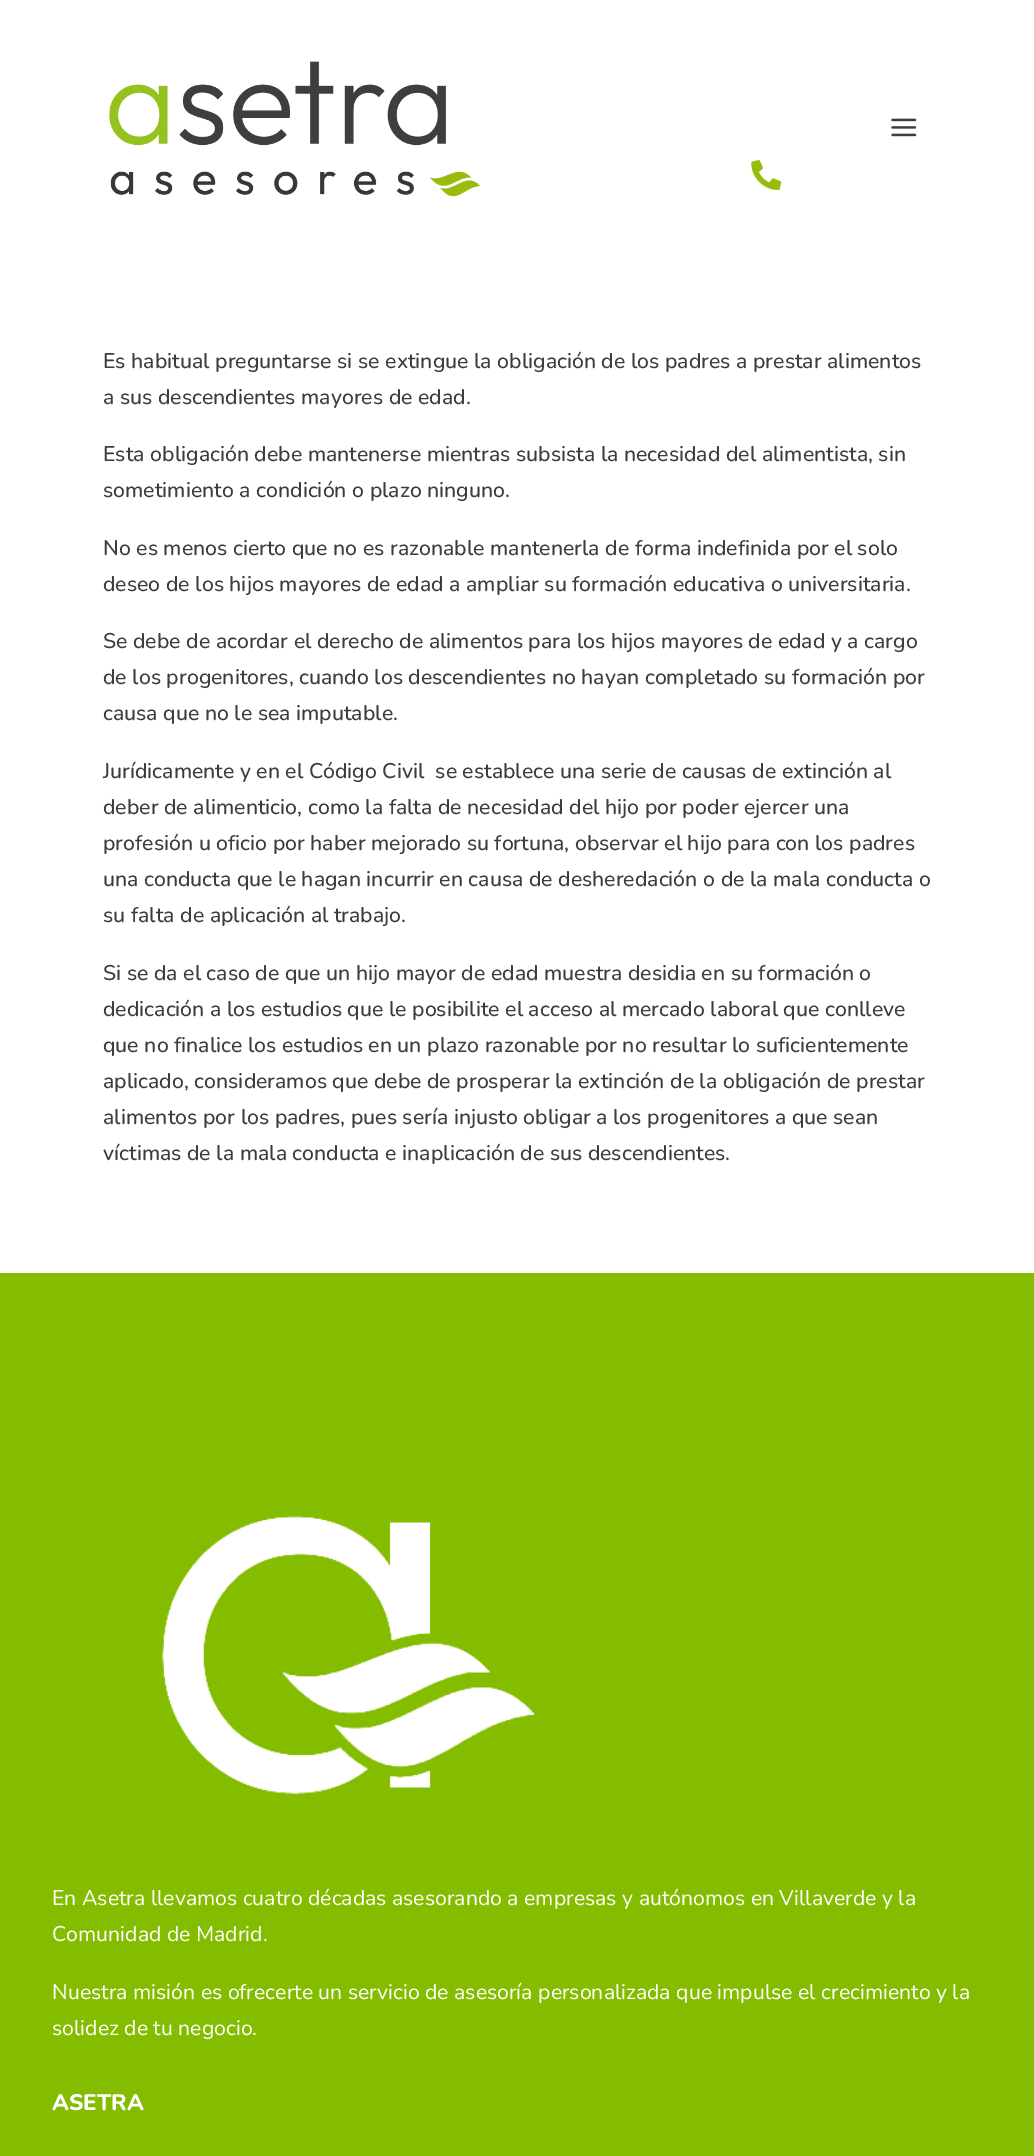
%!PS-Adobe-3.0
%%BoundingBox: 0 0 1034 2156
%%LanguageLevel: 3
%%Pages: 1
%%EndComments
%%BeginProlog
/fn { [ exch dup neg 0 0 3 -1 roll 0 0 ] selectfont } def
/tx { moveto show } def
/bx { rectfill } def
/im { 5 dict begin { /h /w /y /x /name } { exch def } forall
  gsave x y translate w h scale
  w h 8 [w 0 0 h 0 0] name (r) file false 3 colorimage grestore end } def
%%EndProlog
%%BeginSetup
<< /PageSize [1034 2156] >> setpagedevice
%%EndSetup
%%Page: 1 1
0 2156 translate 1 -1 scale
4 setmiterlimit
1 setgray
0 0 1034 2156 bx
(image0.raw) 109 61 371 136 im
(image1.raw) 891 118 26 19 im
(image2.raw) 751 160 31 30 im
/Nunito-Medium 21.25 fn
0.239 0.239 0.247 setrgbcolor
(Es habitual preguntarse si se extingue la obligación de los padres a prestar alimentos) 103 368 tx
(a sus descendientes mayores de edad.) 103 404 tx
(Esta obligación debe mantenerse mientras subsista la necesidad del alimentista, sin) 103 461 tx
(sometimiento a condición o plazo ninguno.) 103 497 tx
(No es menos cierto que no es razonable mantenerla de forma indefinida por el solo) 103 555 tx
(deseo de los hijos mayores de edad a ampliar su formación educativa o universitaria.) 103 591 tx
(Se debe de acordar el derecho de alimentos para los hijos mayores de edad y a cargo) 103 648 tx
(de los progenitores, cuando los descendientes no hayan completado su formación por) 103 684 tx
(causa que no le sea imputable.) 103 720 tx
(Jurídicamente y en el Código Civil  se establece una serie de causas de extinción al) 103 778 tx
(deber de alimenticio, como la falta de necesidad del hijo por poder ejercer una) 103 814 tx
(profesión u oficio por haber mejorado su fortuna, observar el hijo para con los padres) 103 850 tx
(una conducta que le hagan incurrir en causa de desheredación o de la mala conducta o) 103 886 tx
(su falta de aplicación al trabajo.) 103 922 tx
(Si se da el caso de que un hijo mayor de edad muestra desidia en su formación o) 103 980 tx
(dedicación a los estudios que le posibilite el acceso al mercado laboral que conlleve) 103 1016 tx
(que no finalice los estudios en un plazo razonable por no resultar lo suficientemente) 103 1052 tx
(aplicado, consideramos que debe de prosperar la extinción de la obligación de prestar) 103 1088 tx
(alimentos por los padres, pues sería injusto obligar a los progenitores a que sean) 103 1124 tx
(víctimas de la mala conducta e inaplicación de sus descendientes.) 103 1160 tx
0.518 0.741 0 setrgbcolor
0 1273 1034 883 bx
(image3.raw) 162 1516 374 278 im
/Nunito-Regular 21.25 fn
1 setgray
(En Asetra llevamos cuatro décadas asesorando a empresas y autónomos en Villaverde y la) 52 1905 tx
(Comunidad de Madrid.) 52 1941 tx
(Nuestra misión es ofrecerte un servicio de asesoría personalizada que impulse el crecimiento y la) 52 1999 tx
(solidez de tu negocio.) 52 2035 tx
/Nunito-ExtraBold 22.5 fn
(ASETRA) 52 2110 tx
showpage
%%EOF
